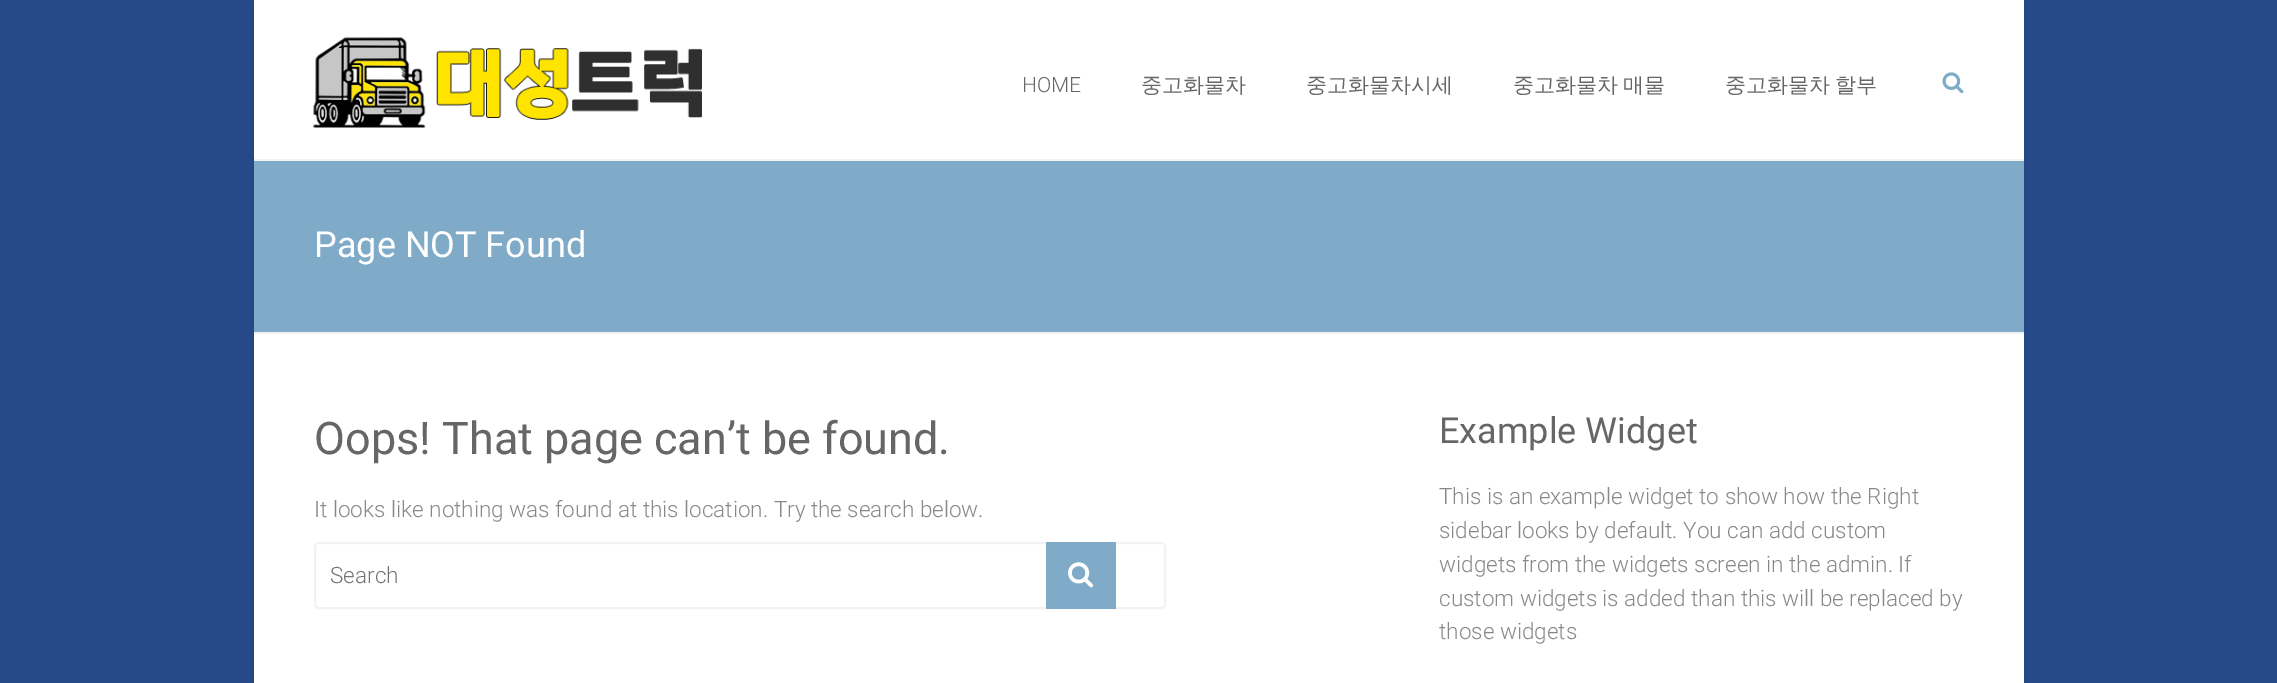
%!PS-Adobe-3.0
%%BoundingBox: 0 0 2277 683
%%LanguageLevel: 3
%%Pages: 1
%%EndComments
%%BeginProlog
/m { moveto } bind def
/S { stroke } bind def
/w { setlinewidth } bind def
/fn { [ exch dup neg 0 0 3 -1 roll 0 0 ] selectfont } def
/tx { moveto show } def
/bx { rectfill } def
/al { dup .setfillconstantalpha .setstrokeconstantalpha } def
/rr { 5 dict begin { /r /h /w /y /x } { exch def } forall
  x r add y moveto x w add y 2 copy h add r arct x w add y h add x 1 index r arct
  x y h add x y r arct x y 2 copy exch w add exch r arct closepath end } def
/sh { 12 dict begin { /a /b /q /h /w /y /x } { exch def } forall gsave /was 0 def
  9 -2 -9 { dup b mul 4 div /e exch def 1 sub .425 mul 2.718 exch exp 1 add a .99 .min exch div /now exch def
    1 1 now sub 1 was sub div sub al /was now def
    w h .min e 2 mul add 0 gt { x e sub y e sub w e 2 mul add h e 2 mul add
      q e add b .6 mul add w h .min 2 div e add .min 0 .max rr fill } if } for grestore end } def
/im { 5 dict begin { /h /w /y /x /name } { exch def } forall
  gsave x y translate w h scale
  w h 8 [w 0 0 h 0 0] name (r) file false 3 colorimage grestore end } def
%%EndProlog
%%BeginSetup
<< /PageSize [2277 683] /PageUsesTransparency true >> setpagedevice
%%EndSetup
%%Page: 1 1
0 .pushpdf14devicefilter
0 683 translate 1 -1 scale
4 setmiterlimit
0.145 0.286 0.537 setrgbcolor
0 0 2277 683 bx
0 setgray
254 2 1770 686 0 1.5 0.1 sh
1 setgray
254 0 1770 683 bx
0.949 setgray
254 159 1770 2 bx
(image0.raw) 313 37 389 91 im
/Roboto-Light 21 fn
0.4 setgray
(HOME) 1022 92 tx
/WenQuanYiZenHei-Medium 21 fn
(중고화물차) 1141 92 tx
(중고화물차시세) 1306 92 tx
1513 92 m -1 0 32 (중고화물차 매물) widthshow
1725 92 m -1 0 32 (중고화물차 할부) widthshow
(image1.raw) 1942 72 22 22 im
0.502 0.671 0.784 setrgbcolor
254 161 1770 171 bx
0.949 setgray
254 332 1770 2 bx
/Roboto-Regular 36 fn
1 setgray
(Page NOT Found) 314 257 tx
/Roboto-Regular 45 fn
0.4 setgray
(Oops! That page can’t be found.) 314 454 tx
/Roboto-Light 22.5 fn
0.533 setgray
(It looks like nothing was found at this location. Try the search below.) 314 517 tx
0.949 setgray
2 w
315 543 850 65 4 rr S
0.459 setgray
(Search) 330 583 tx
0.502 0.671 0.784 setrgbcolor
1046 542 70 67 bx
(image2.raw) 1068 562 25 26 im
/Roboto-Regular 36 fn
0.4 setgray
(Example Widget) 1439 443 tx
/Roboto-Light 22.5 fn
0.533 setgray
(This is an example widget to show how the Right) 1439 504 tx
(sidebar looks by default. You can add custom) 1439 538 tx
(widgets from the widgets screen in the admin. If) 1439 572 tx
(custom widgets is added than this will be replaced by) 1439 606 tx
(those widgets) 1439 639 tx
.poppdf14devicefilter showpage
%%EOF
